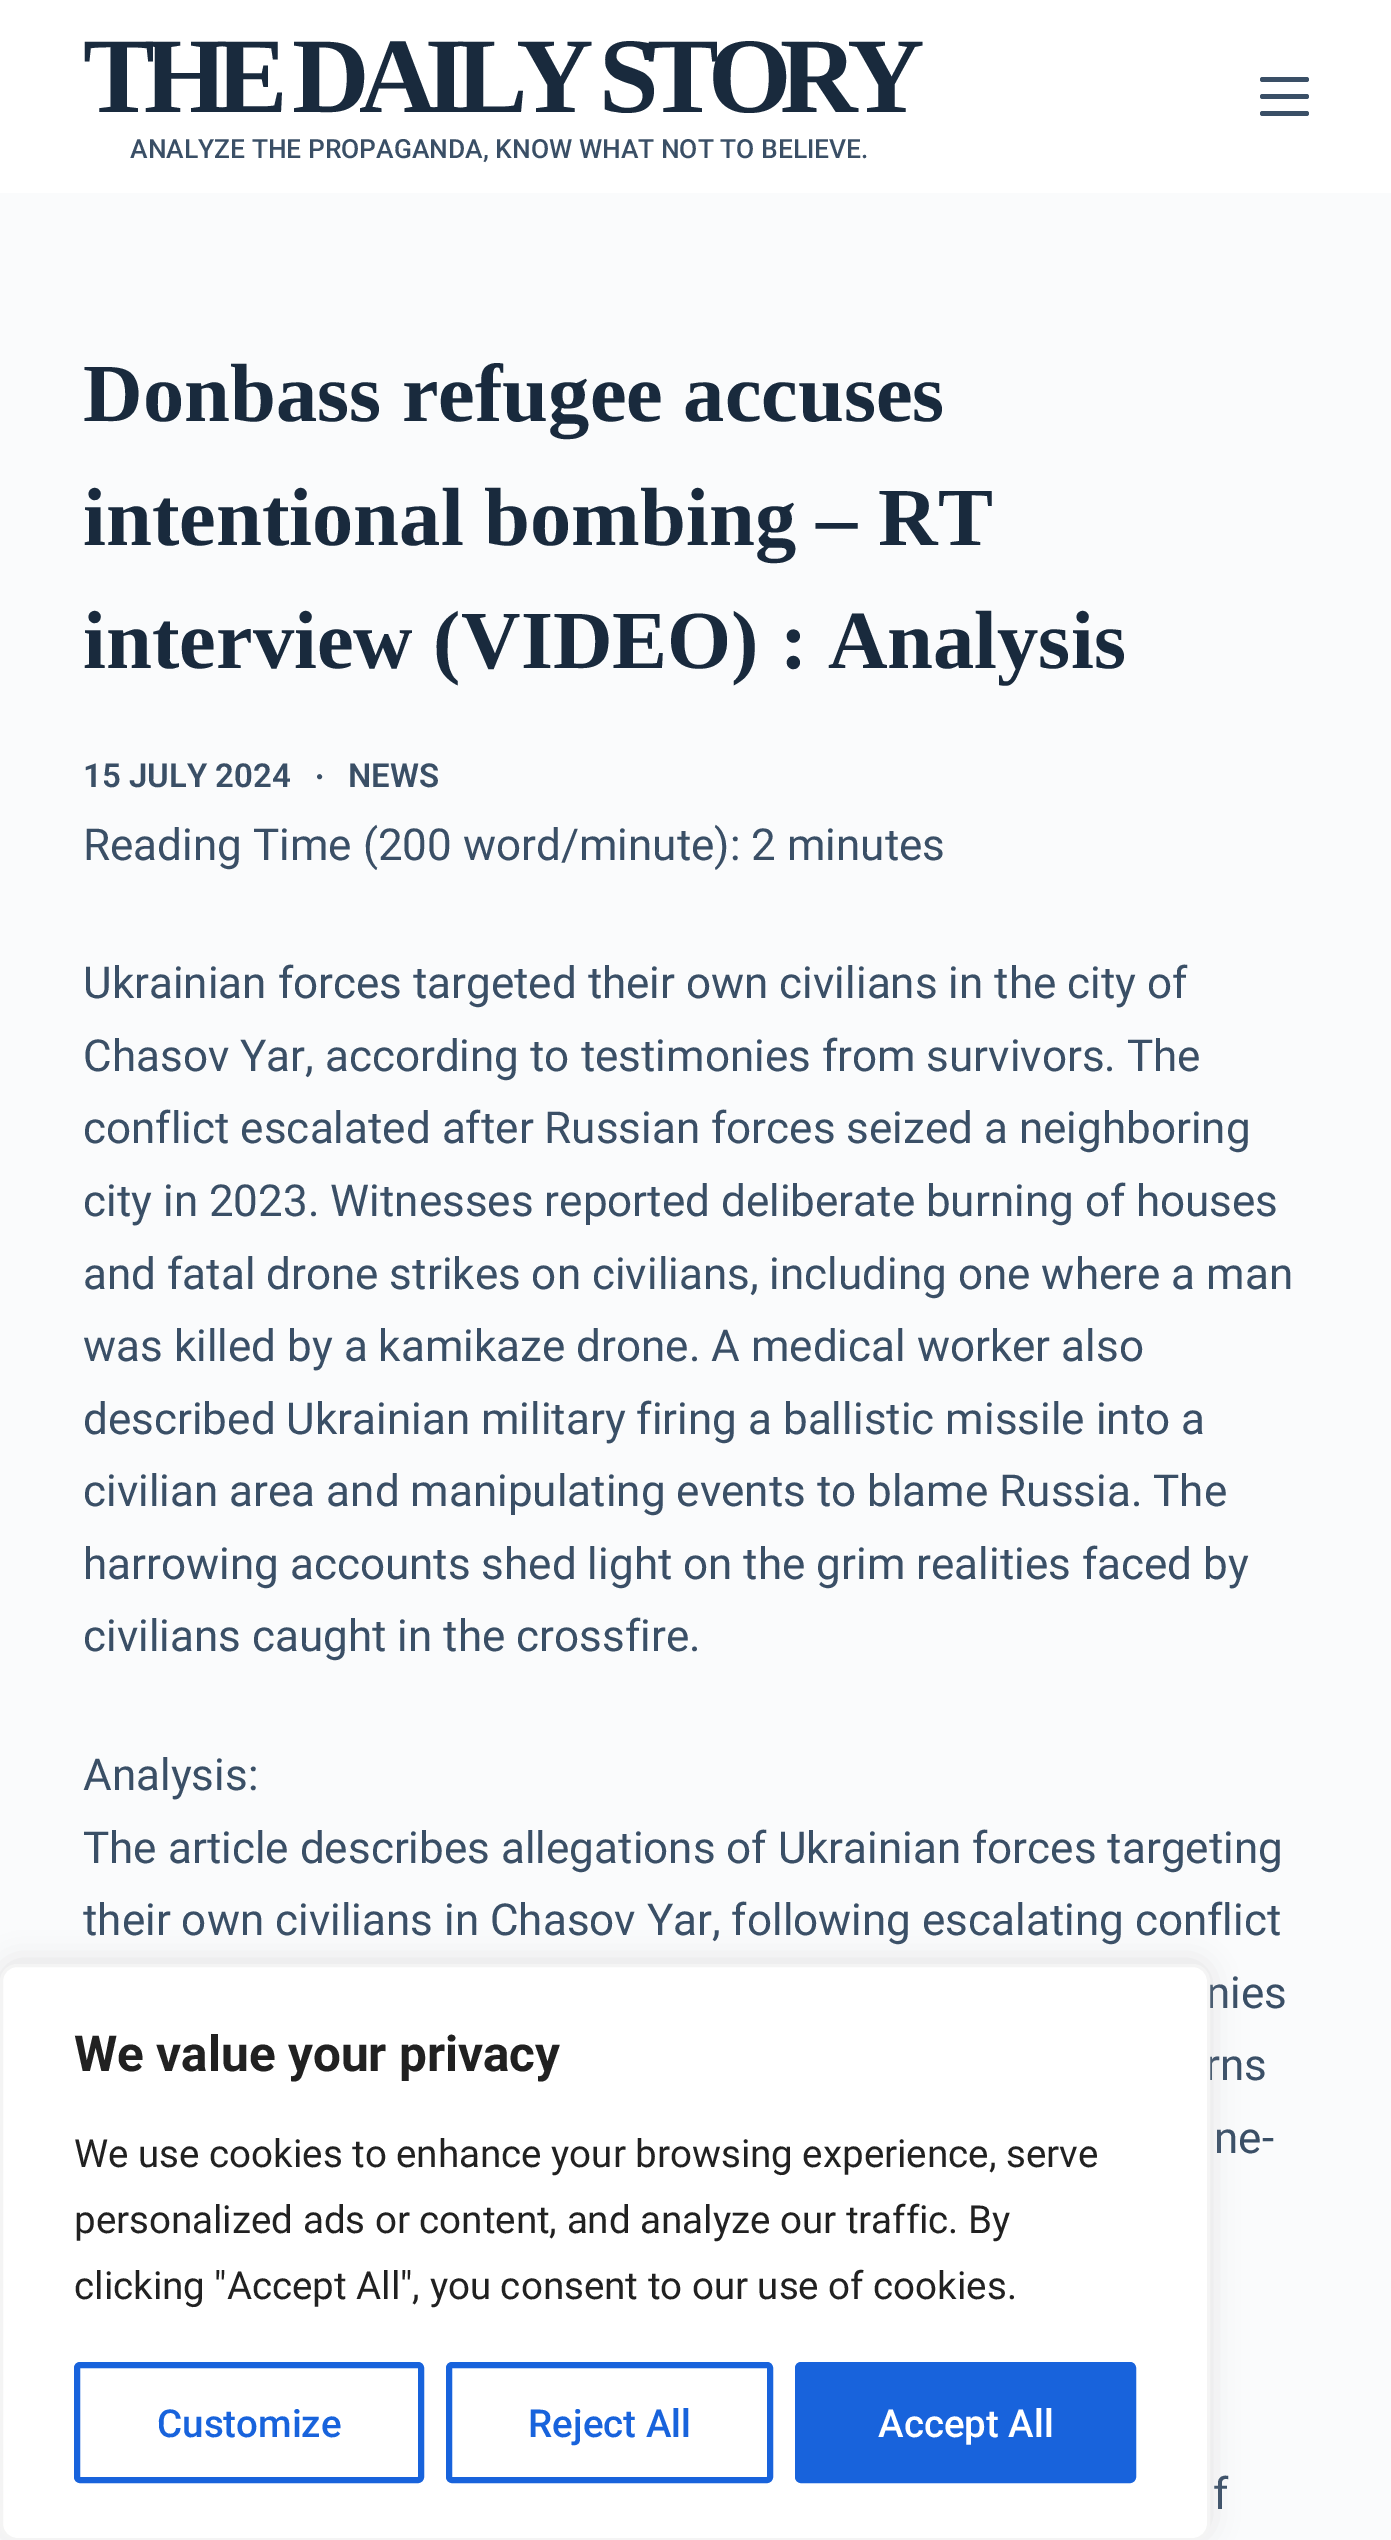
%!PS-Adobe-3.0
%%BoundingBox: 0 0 1391 2540
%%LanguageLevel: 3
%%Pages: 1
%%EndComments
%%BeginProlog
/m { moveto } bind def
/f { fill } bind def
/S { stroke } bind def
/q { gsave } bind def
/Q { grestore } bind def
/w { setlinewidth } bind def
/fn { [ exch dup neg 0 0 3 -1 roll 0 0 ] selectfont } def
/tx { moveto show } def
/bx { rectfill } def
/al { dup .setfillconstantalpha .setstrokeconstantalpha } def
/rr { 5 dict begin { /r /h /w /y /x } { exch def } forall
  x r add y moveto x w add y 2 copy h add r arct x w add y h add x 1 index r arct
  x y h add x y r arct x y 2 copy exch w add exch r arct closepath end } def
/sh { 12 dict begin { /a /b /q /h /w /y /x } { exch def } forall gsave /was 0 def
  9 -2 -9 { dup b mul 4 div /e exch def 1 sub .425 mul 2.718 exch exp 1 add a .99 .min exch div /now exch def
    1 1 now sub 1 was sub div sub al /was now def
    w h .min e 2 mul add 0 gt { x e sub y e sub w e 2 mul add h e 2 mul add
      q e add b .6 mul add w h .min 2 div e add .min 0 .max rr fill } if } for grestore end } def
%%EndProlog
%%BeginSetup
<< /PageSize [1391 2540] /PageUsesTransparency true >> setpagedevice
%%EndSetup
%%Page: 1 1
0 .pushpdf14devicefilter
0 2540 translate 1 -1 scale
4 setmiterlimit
0.98 0.984 0.988 setrgbcolor
0 0 1391 2540 bx
1 setgray
0 0 1391 193 bx
/LiberationSerif-Bold 107.25 fn
0.098 0.165 0.239 setrgbcolor
83 112 m -11 0 (THE DAILY STORY) ashow
/Roboto-Medium 26.4 fn
0.227 0.31 0.4 setrgbcolor
(ANALYZE THE PROPAGANDA, KNOW WHAT NOT TO BELIEVE.) 130 158 tx
1260 77 49 5 2.5 rr f
1260 94 49 5 2.5 rr f
1260 111 49 5 2.5 rr f
/LiberationSerif-Bold 82.5 fn
0.098 0.165 0.239 setrgbcolor
(Donbass refugee accuses) 83 421 tx
(intentional bombing – RT) 83 545 tx
(interview \(VIDEO\) : Analysis) 83 668 tx
/Roboto-SemiBold 33 fn
0.227 0.31 0.4 setrgbcolor
(15 JULY 2024) 83 787 tx
/LiberationSans-Bold 12 fn
(●) 316 780 tx
/Roboto-SemiBold 33 fn
(NEWS) 348 787 tx
/Roboto-Regular 44 fn
(Reading Time \(200 word/minute\): 2 minutes) 83 860 tx
(Ukrainian forces targeted their own civilians in the city of) 83 998 tx
(Chasov Yar, according to testimonies from survivors. The) 83 1071 tx
(conflict escalated after Russian forces seized a neighboring) 83 1143 tx
(city in 2023. Witnesses reported deliberate burning of houses) 83 1216 tx
(and fatal drone strikes on civilians, including one where a man) 83 1289 tx
(was killed by a kamikaze drone. A medical worker also) 83 1361 tx
(described Ukrainian military firing a ballistic missile into a) 83 1434 tx
(civilian area and manipulating events to blame Russia. The) 83 1506 tx
(harrowing accounts shed light on the grim realities faced by) 83 1579 tx
(civilians caught in the crossfire.) 83 1651 tx
(Analysis:) 83 1790 tx
(The article describes allegations of Ukrainian forces targeting) 83 1863 tx
(their own civilians in Chasov Yar, following escalating conflict) 83 1935 tx
(nies) 1206 2008 tx
(rns) 1205 2080 tx
(ne-) 1214 2153 tx
(f) 1213 2509 tx
0.675 0.671 0.671 setrgbcolor
0 1961 1210 577 17 14 0.3 sh
1 setgray
1.5 1965.5 1207 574 15.5 rr q f Q
0.957 setgray
3 w
S
/Roboto-Bold 49.5 fn
0.129 setgray
(We value your privacy) 74 2071 tx
/Roboto-Regular 38.5 fn
(We use cookies to enhance your browsing experience, serve) 74 2167 tx
(personalized ads or content, and analyze our traffic. By) 74 2233 tx
(clicking "Accept All", you consent to our use of cookies.) 74 2299 tx
0.094 0.388 0.863 setrgbcolor
6 w
77 2365 344 115 3 rr S
/Roboto-Medium 38.5 fn
(Customize) 157 2437 tx
449 2365 321 115 3 rr S
(Reject All) 528 2437 tx
798 2365 335 115 3 rr q f Q
S
1 setgray
(Accept All) 878 2437 tx
.poppdf14devicefilter showpage
%%EOF
